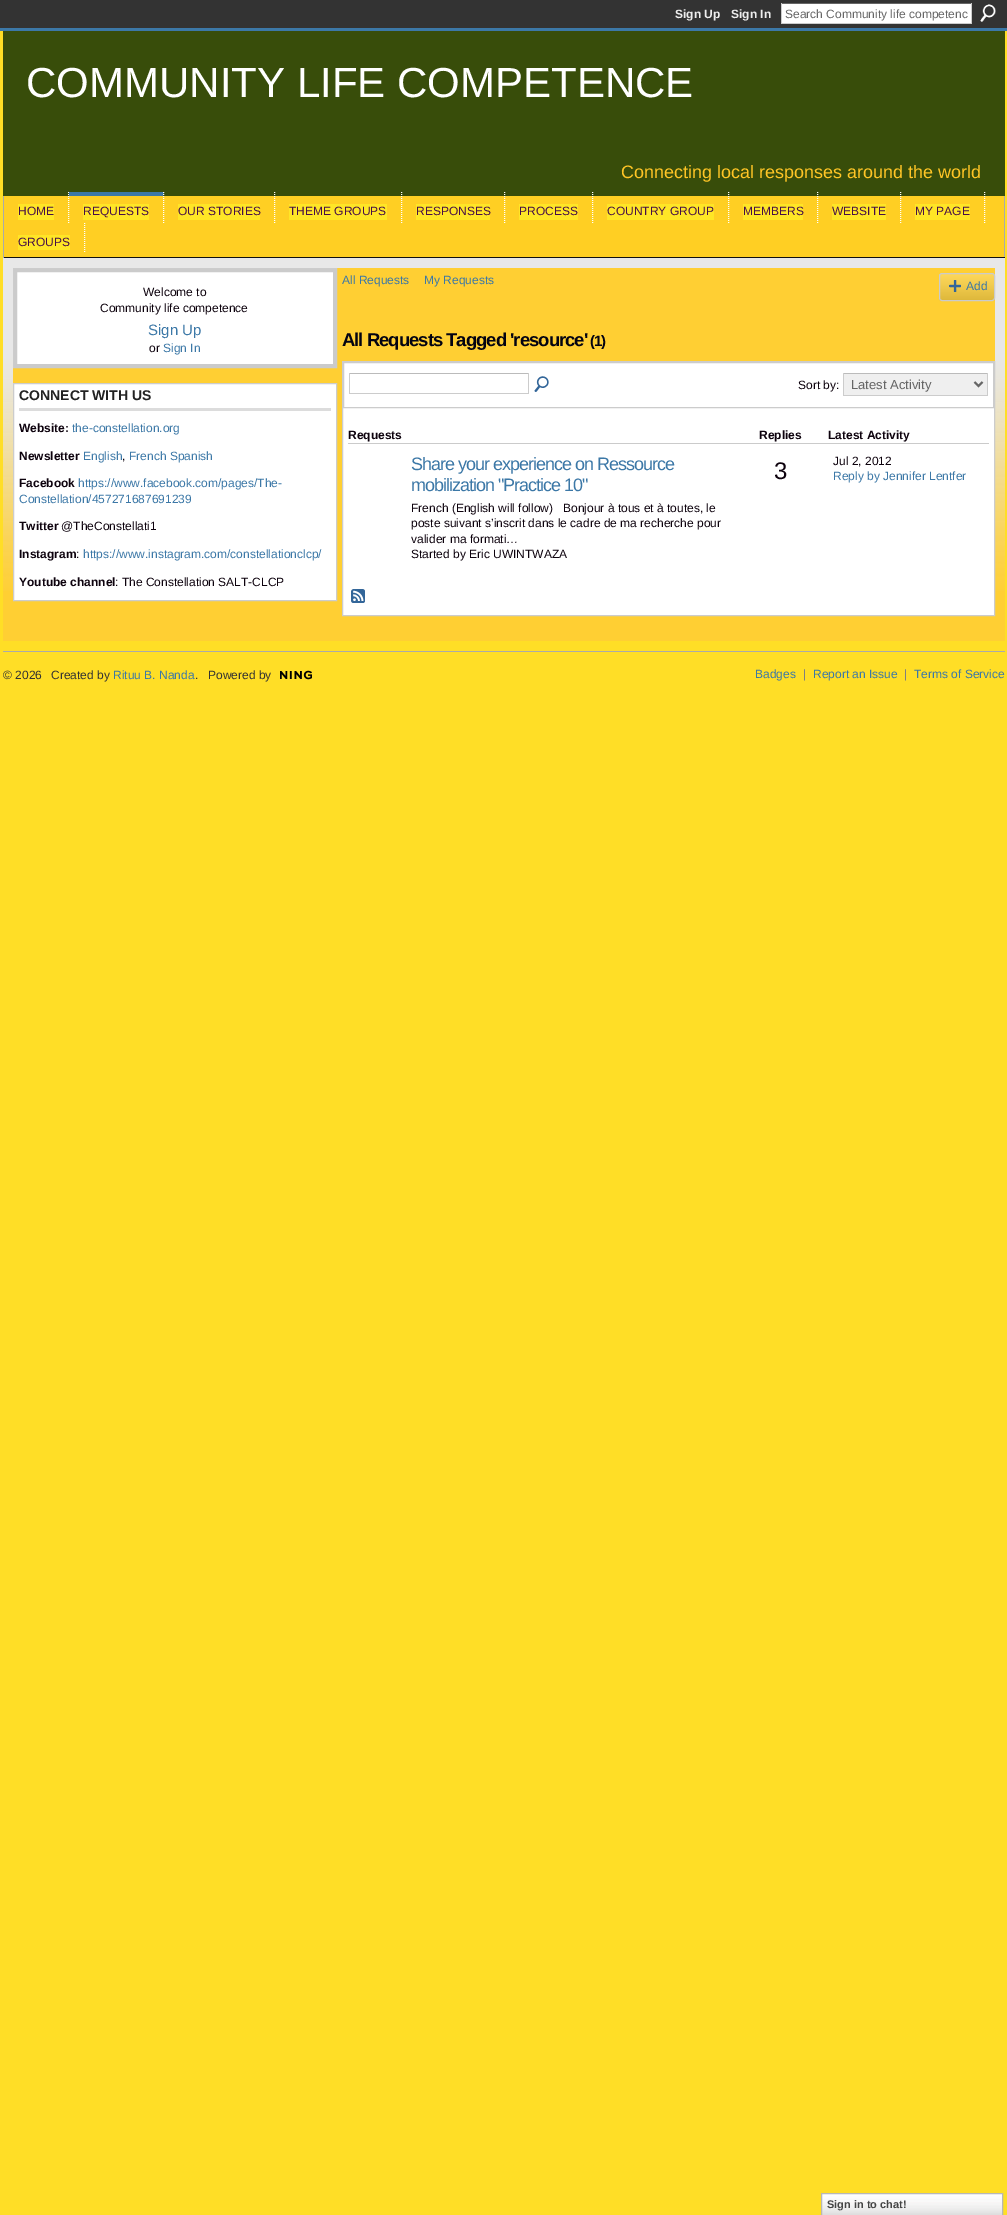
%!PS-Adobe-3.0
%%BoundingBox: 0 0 1007 2215
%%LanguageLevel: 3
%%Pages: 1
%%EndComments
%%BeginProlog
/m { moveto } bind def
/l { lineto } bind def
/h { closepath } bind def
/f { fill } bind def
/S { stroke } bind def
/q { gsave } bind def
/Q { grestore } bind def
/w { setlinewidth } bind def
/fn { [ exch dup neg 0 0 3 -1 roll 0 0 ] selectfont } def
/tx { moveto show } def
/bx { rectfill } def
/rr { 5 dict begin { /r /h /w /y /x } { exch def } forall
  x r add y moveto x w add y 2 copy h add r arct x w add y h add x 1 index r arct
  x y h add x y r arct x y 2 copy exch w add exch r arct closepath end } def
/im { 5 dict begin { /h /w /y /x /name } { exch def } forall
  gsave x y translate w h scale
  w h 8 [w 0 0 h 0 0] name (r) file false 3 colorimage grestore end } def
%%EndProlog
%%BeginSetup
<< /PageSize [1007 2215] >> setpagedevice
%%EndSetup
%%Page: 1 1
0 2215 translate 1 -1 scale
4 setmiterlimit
1 0.871 0.149 setrgbcolor
0 0 1007 2215 bx
0.2 setgray
0 0 1007 28 bx
/LiberationSans-Bold 12 fn
0.933 setgray
(Sign Up) 675 18 tx
(Sign In) 731 18 tx
1 setgray
782 4 189 19 bx
0.4 setgray
781 3 191 1 bx
0.8 setgray
971 3 1 21 bx
781 23 191 1 bx
781 3 1 21 bx
/LiberationSans-Regular 12 fn
0.4 setgray
(Search Community life competenc) 785 18 tx
(image0.raw) 980 4 16 18 im
0.235 0.471 0.655 setrgbcolor
0 28 1007 3 bx
0.22 0.302 0.039 setrgbcolor
3 31 1002 165 bx
/LiberationSans-Regular 42 fn
1 setgray
(COMMUNITY LIFE COMPETENCE) 26 97 tx
/LiberationSans-Regular 18 fn
1 0.773 0.149 setrgbcolor
(Connecting local responses around the world) 621 178 tx
1 0.812 0.137 setrgbcolor
4 196 1000 61 bx
0.667 setgray
1004 196 1 62 bx
0.067 setgray
3 257 1002 1 bx
0.667 setgray
3 196 1 62 bx
1 setgray
[1 1] 0 setdash
68.5 192 m 68.5 223 l S
1 0.902 0.149 setrgbcolor
18 204 36 16 bx
/LiberationSans-Regular 12 fn
0.278 0.055 0.278 setrgbcolor
(HOME) 18 215 tx
0.235 0.471 0.655 setrgbcolor
69 192 m 164 192 l 163 196 l 69 196 l h f
1 setgray
163.5 192 m 163.5 223 l S
1 0.902 0.149 setrgbcolor
83 204 66 16 bx
0.278 0.055 0.278 setrgbcolor
(REQUESTS) 83 215 tx
1 setgray
274.5 192 m 274.5 223 l S
1 0.902 0.149 setrgbcolor
178 204 82 16 bx
0.278 0.055 0.278 setrgbcolor
(OUR STORIES) 178 215 tx
1 setgray
401.5 192 m 401.5 223 l S
1 0.902 0.149 setrgbcolor
289 204 98 16 bx
0.278 0.055 0.278 setrgbcolor
(THEME GROUPS) 289 215 tx
1 setgray
504.5 192 m 504.5 223 l S
1 0.902 0.149 setrgbcolor
416 204 74 16 bx
0.278 0.055 0.278 setrgbcolor
(RESPONSES) 416 215 tx
1 setgray
592.5 192 m 592.5 223 l S
1 0.902 0.149 setrgbcolor
519 204 59 16 bx
0.278 0.055 0.278 setrgbcolor
(PROCESS) 519 215 tx
1 setgray
728.5 192 m 728.5 223 l S
1 0.902 0.149 setrgbcolor
607 204 107 16 bx
0.278 0.055 0.278 setrgbcolor
(COUNTRY GROUP) 607 215 tx
1 setgray
817.5 192 m 817.5 223 l S
1 0.902 0.149 setrgbcolor
743 204 60 16 bx
0.278 0.055 0.278 setrgbcolor
(MEMBERS) 743 215 tx
1 setgray
900.5 192 m 900.5 223 l S
1 0.902 0.149 setrgbcolor
832 204 54 16 bx
0.278 0.055 0.278 setrgbcolor
(WEBSITE) 832 215 tx
1 setgray
984.5 192 m 984.5 223 l S
1 0.902 0.149 setrgbcolor
915 204 55 16 bx
0.278 0.055 0.278 setrgbcolor
(MY PAGE) 915 215 tx
1 setgray
84.5 223 m 84.5 253 l S
1 0.902 0.149 setrgbcolor
18 235 52 15 bx
0.278 0.055 0.278 setrgbcolor
(GROUPS) 18 246 tx
1 0.812 0.2 setrgbcolor
3 355 1002 286 bx
(image1.raw) 3 258 1002 333 im
13 268 982 323 bx
1 setgray
17 272 316 92 bx
0.8 setgray
[] 0 setdash
13.5 268.5 323 99 rectstroke
0.796 setgray
3 w
15.5 270.5 319 95 rectstroke
0.051 0.008 0.051 setrgbcolor
(Welcome to) 143 296 tx
(Community life competence) 100 312 tx
/LiberationSans-Regular 15 fn
0.235 0.471 0.655 setrgbcolor
(Sign Up) 148 335 tx
/LiberationSans-Regular 12 fn
0.051 0.008 0.051 setrgbcolor
(or) 149 352 tx
0.235 0.471 0.655 setrgbcolor
(Sign In) 163 352 tx
1 setgray
13.5 383.5 m 336.5 383.5 l 336.5 600.5 l 13.5 600.5 l h q f Q
0.8 setgray
1 w
S
0.863 setgray
19 408 312 3 bx
/LiberationSans-Bold 14 fn
0.133 setgray
(CONNECT WITH US) 19 400 tx
/LiberationSans-Bold 12 fn
0.051 0.008 0.051 setrgbcolor
(Website:) 19 432 tx
/LiberationSans-Regular 12 fn
0.235 0.471 0.655 setrgbcolor
(the-constellation.org) 72 432 tx
/LiberationSans-Bold 12 fn
0.051 0.008 0.051 setrgbcolor
(Newsletter) 19 460 tx
/LiberationSans-Regular 12 fn
0.235 0.471 0.655 setrgbcolor
(English) 83 460 tx
0.051 0.008 0.051 setrgbcolor
(,) 122 460 tx
0.235 0.471 0.655 setrgbcolor
(French Spanish) 129 460 tx
/LiberationSans-Bold 12 fn
0.051 0.008 0.051 setrgbcolor
(Facebook) 19 487 tx
/LiberationSans-Regular 12 fn
0.235 0.471 0.655 setrgbcolor
(https://www.facebook.com/pages/The-) 78 487 tx
(Constellation/457271687691239) 19 503 tx
/LiberationSans-Bold 12 fn
0.051 0.008 0.051 setrgbcolor
(Twitter) 19 530 tx
/LiberationSans-Regular 12 fn
(@TheConstellati1) 61 530 tx
/LiberationSans-Bold 12 fn
(Instagram) 19 558 tx
/LiberationSans-Regular 12 fn
(:) 76 558 tx
0.235 0.471 0.655 setrgbcolor
(https://www.instagram.com/constellationclcp/) 83 558 tx
/LiberationSans-Bold 12 fn
0.051 0.008 0.051 setrgbcolor
(Youtube channel) 19 586 tx
/LiberationSans-Regular 12 fn
(: The Constellation SALT-CLCP) 115 586 tx
0.235 0.471 0.655 setrgbcolor
(All Requests) 342 284 tx
(My Requests) 424 284 tx
(image2.raw) 939 274 56 27 im
0.796 setgray
939.5 273.5 55 27 2.5 rr S
(image3.raw) 949 280 12 12 im
0.235 0.471 0.655 setrgbcolor
(Add) 966 290 tx
/LiberationSans-Bold 18.5 fn
0.012 0.012 0.071 setrgbcolor
342 346 m -1 0 (All Requests Tagged 'resource') ashow
/LiberationSans-Bold 15 fn
590 346 m -1 0 (\(1\)) ashow
1 setgray
343 363 651 252 bx
0.8 setgray
342.5 361.5 652 254 rectstroke
343.5 362.5 650 45 rectstroke
0.733 setgray
349 373 180 1 bx
0.8 setgray
528 373 1 21 bx
349 393 180 1 bx
349 373 1 21 bx
(image4.raw) 534 376 15 16 im
/LiberationSans-Regular 12 fn
0.051 0.008 0.051 setrgbcolor
(Sort by:) 798 389 tx
0.937 setgray
844 374 143 21 bx
0.733 setgray
843 373 145 1 bx
0.8 setgray
987 373 1 23 bx
843 395 145 1 bx
843 373 1 23 bx
0.4 setgray
2 w
974.5 382 m 978.5 386 l 982.5 382 l S
/LiberationSans-Regular 13 fn
(Latest Activity) 851 389 tx
/LiberationSans-Bold 12 fn
0.051 0.008 0.051 setrgbcolor
(Requests) 348 439 tx
(Replies) 759 439 tx
0.796 setgray
348 443 641 1 bx
0.051 0.008 0.051 setrgbcolor
(Latest Activity) 828 439 tx
/LiberationSans-Regular 18 fn
0.235 0.471 0.655 setrgbcolor
411 470 m -1 0 (Share your experience on Ressource) ashow
411 491 m -1 0 (mobilization "Practice 10") ashow
/LiberationSans-Regular 12 fn
0.051 0.008 0.051 setrgbcolor
(French \(English will follow\)   Bonjour à tous et à toutes, le) 411 512 tx
(poste suivant s’inscrit dans le cadre de ma recherche pour) 411 527 tx
(valider ma formati…) 411 543 tx
(Started by Eric UWINTWAZA) 411 558 tx
/LiberationSans-Regular 24 fn
774 479 m -1 0 (3) ashow
/LiberationSans-Regular 12 fn
(Jul 2, 2012) 833 465 tx
0.235 0.471 0.655 setrgbcolor
(Reply by Jennifer Lentfer) 833 480 tx
(image5.raw) 351 589 14 14 im
0.667 setgray
3 651 1002 1 bx
0.2 setgray
(© 2026) 3 679 tx
(Created by) 51 679 tx
0.235 0.471 0.655 setrgbcolor
(Rituu B. Nanda) 113 679 tx
0.2 setgray
(.) 195 679 tx
(Powered by) 208 679 tx
(image6.raw) 280 670 32 10 im
0.235 0.471 0.655 setrgbcolor
(Badges) 755 678 tx
0.498 setgray
(|) 803 678 tx
0.235 0.471 0.655 setrgbcolor
(Report an Issue) 813 678 tx
0.498 setgray
(|) 904 678 tx
0.235 0.471 0.655 setrgbcolor
(Terms of Service) 914 678 tx
(image7.raw) 822 2194 180 21 im
0.718 setgray
1 w
821.5 2193.5 181 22 rectstroke
/LiberationSans-Bold 11 fn
0.271 setgray
(Sign in to chat!) 827 2208 tx
showpage
%%EOF
